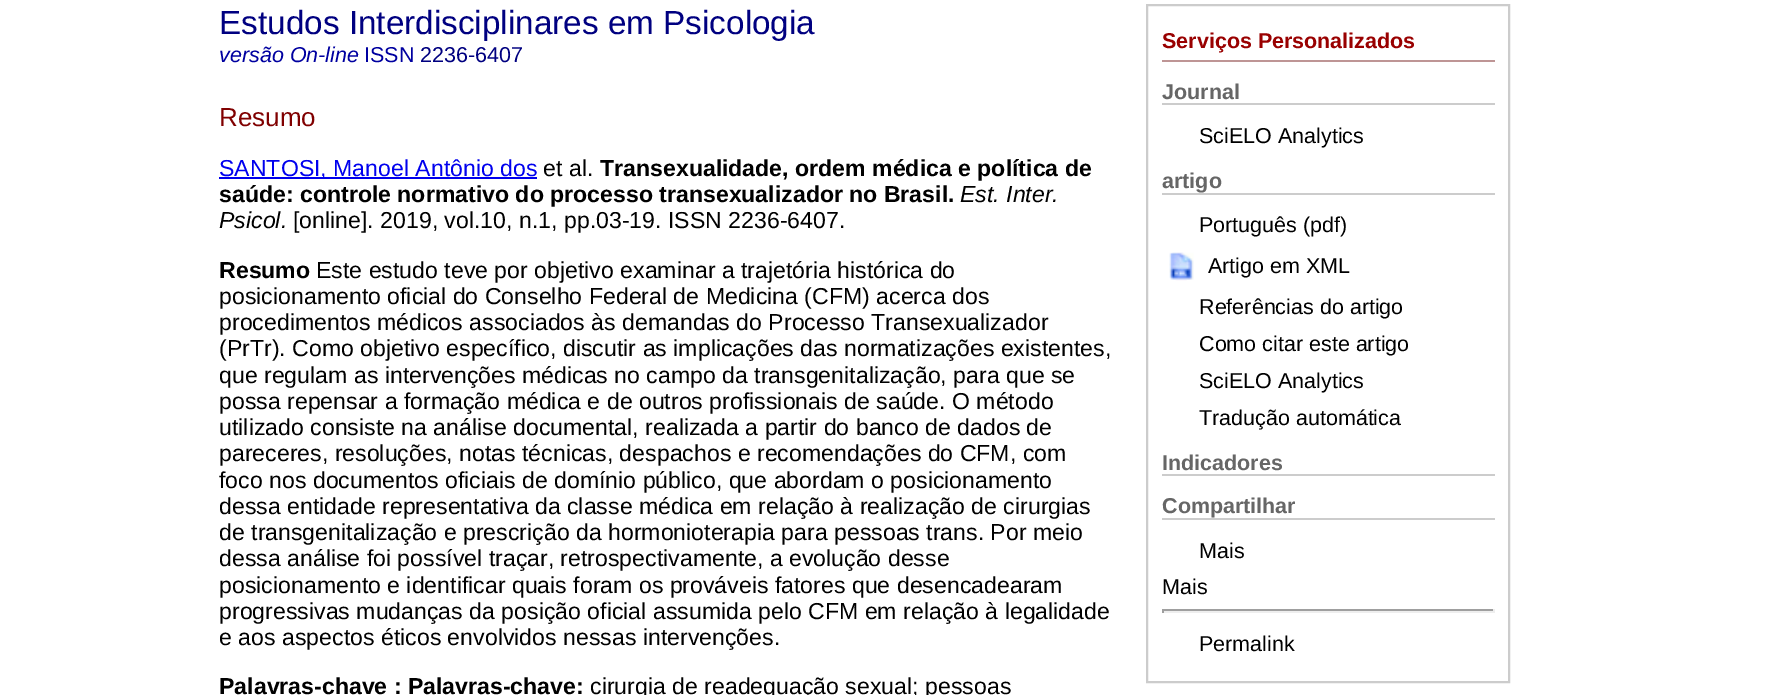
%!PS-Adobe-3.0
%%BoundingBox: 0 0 1766 695
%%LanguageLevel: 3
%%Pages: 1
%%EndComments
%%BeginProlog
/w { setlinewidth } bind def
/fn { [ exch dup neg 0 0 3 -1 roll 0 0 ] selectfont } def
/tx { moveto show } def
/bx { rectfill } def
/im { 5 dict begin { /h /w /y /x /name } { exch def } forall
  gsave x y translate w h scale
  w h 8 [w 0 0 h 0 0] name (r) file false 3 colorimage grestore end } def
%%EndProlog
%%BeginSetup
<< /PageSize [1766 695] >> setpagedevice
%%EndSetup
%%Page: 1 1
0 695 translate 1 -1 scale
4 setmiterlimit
1 setgray
0 0 1766 695 bx
/LiberationSans-Regular 33.3 fn
0 0 0.502 setrgbcolor
(Estudos Interdisciplinares em Psicologia) 219 34 tx
/LiberationSans-Italic 21.5 fn
0 0 0.627 setrgbcolor
(versão On-line) 219 62 tx
/LiberationSans-Regular 21.5 fn
(ISSN) 364 62 tx
0 0 0.502 setrgbcolor
(2236-6407) 420 62 tx
0.8 setgray
2 w
1147 5 362 677 rectstroke
0.745 0.584 0.584 setrgbcolor
1162 60 333 2 bx
/LiberationSans-Bold 21.5 fn
0.6 0 0 setrgbcolor
(Serviços Personalizados) 1162 48 tx
0.8 setgray
1162 103 333 2 bx
0.4 setgray
(Journal) 1162 99 tx
/LiberationSans-Regular 21.5 fn
0 setgray
(SciELO Analytics) 1199 143 tx
0.8 setgray
1162 193 333 2 bx
/LiberationSans-Bold 21.5 fn
0.4 setgray
(artigo) 1162 188 tx
/LiberationSans-Regular 21.5 fn
0 setgray
(Português \(pdf\)) 1199 232 tx
(image0.raw) 1169 252 25 29 im
(Artigo em XML) 1208 273 tx
(Referências do artigo) 1199 314 tx
(Como citar este artigo) 1199 351 tx
(SciELO Analytics) 1199 388 tx
(Tradução automática) 1199 425 tx
0.8 setgray
1162 474 333 2 bx
/LiberationSans-Bold 21.5 fn
0.4 setgray
(Indicadores) 1162 470 tx
0.8 setgray
1162 518 333 2 bx
0.4 setgray
(Compartilhar) 1162 513 tx
/LiberationSans-Regular 21.5 fn
0 setgray
(Mais) 1199 558 tx
(Mais) 1162 594 tx
0.624 setgray
1162 609 333 2 bx
0.933 setgray
1493 609 2 4 bx
1162 611 333 2 bx
0.624 setgray
1162 609 2 4 bx
0 setgray
(Permalink) 1199 651 tx
/LiberationSans-Regular 26 fn
0.502 0 0 setrgbcolor
(Resumo) 219 126 tx
0 0 0.933 setrgbcolor
219 177 318 2 bx
/LiberationSans-Regular 23.1 fn
(SANTOSI, Manoel Antônio dos) 219 176 tx
0 setgray
(et al.) 543 176 tx
/LiberationSans-Bold 23.1 fn
(Transexualidade, ordem médica e política de) 600 176 tx
(saúde: controle normativo do processo transexualizador no Brasil.) 219 202 tx
/LiberationSans-Italic 23.1 fn
(Est. Inter.) 960 202 tx
(Psicol.) 219 228 tx
/LiberationSans-Regular 23.1 fn
([online]. 2019, vol.10, n.1, pp.03-19. ISSN 2236-6407.) 293 228 tx
/LiberationSans-Bold 23.1 fn
(Resumo) 219 278 tx
/LiberationSans-Regular 23.1 fn
(Este estudo teve por objetivo examinar a trajetória histórica do) 316 278 tx
(posicionamento oficial do Conselho Federal de Medicina \(CFM\) acerca dos) 219 304 tx
(procedimentos médicos associados às demandas do Processo Transexualizador) 219 330 tx
(\(PrTr\). Como objetivo específico, discutir as implicações das normatizações existentes,) 219 356 tx
(que regulam as intervenções médicas no campo da transgenitalização, para que se) 219 383 tx
(possa repensar a formação médica e de outros profissionais de saúde. O método) 219 409 tx
(utilizado consiste na análise documental, realizada a partir do banco de dados de) 219 435 tx
(pareceres, resoluções, notas técnicas, despachos e recomendações do CFM, com) 219 461 tx
(foco nos documentos oficiais de domínio público, que abordam o posicionamento) 219 488 tx
(dessa entidade representativa da classe médica em relação à realização de cirurgias) 219 514 tx
(de transgenitalização e prescrição da hormonioterapia para pessoas trans. Por meio) 219 540 tx
(dessa análise foi possível traçar, retrospectivamente, a evolução desse) 219 566 tx
(posicionamento e identificar quais foram os prováveis fatores que desencadearam) 219 593 tx
(progressivas mudanças da posição oficial assumida pelo CFM em relação à legalidade) 219 619 tx
(e aos aspectos éticos envolvidos nessas intervenções.) 219 645 tx
/LiberationSans-Bold 23.1 fn
(Palavras-chave : Palavras-chave:) 219 694 tx
/LiberationSans-Regular 23.1 fn
(cirurgia de readequação sexual; pessoas) 590 694 tx
showpage
%%EOF
